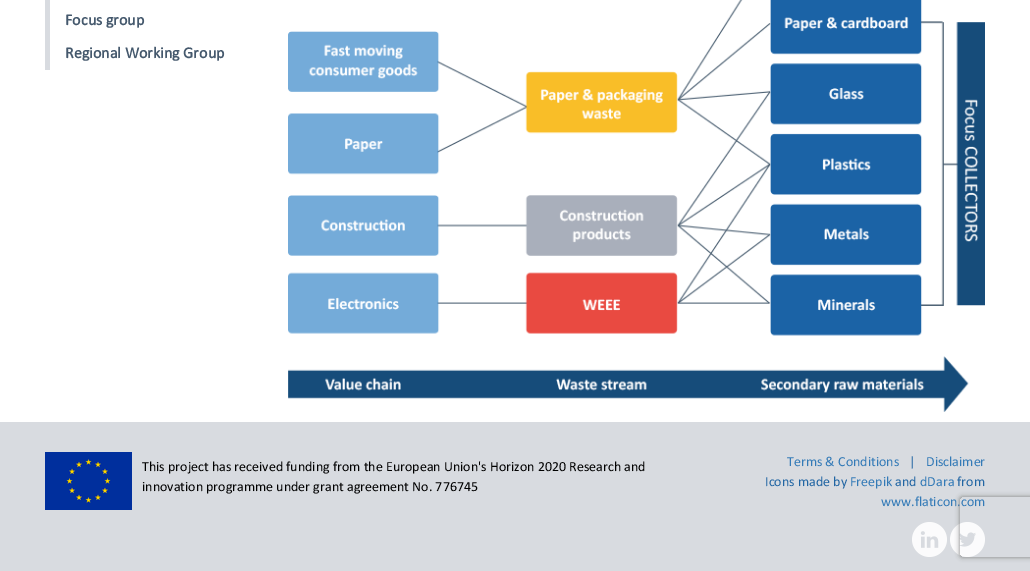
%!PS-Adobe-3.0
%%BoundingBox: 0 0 1030 571
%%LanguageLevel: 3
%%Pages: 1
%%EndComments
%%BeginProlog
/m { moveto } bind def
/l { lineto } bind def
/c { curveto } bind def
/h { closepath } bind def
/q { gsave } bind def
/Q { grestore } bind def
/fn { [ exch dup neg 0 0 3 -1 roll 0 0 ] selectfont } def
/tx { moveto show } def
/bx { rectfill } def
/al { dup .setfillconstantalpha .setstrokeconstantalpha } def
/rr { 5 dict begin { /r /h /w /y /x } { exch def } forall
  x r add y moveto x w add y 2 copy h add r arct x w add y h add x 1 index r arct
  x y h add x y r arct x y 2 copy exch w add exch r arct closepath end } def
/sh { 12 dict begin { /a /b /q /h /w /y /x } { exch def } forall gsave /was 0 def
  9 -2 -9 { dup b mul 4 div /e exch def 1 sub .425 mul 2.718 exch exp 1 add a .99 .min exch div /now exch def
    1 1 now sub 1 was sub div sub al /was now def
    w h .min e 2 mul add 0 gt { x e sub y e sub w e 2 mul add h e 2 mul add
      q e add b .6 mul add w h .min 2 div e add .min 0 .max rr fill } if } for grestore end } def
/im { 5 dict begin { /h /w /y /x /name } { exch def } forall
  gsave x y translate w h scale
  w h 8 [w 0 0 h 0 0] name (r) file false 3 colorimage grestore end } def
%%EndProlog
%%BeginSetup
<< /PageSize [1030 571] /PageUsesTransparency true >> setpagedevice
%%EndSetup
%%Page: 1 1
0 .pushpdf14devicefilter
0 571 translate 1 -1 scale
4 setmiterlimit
1 setgray
0 0 1030 571 bx
0.847 0.859 0.878 setrgbcolor
45 0 5 70 bx
/Calibri-Bold 16 fn
0.271 0.349 0.427 setrgbcolor
(Focus group) 65 25 tx
(Regional Working Group) 65 58 tx
(image0.raw) 288 0 697 412 im
0.847 0.859 0.878 setrgbcolor
0 422 1030 149 bx
(image1.raw) 45 452 87 58 im
/Calibri-Regular 14 fn
0 setgray
(This project has received funding from the European Union's Horizon 2020 Research and) 142 471 tx
(innovation programme under grant agreement No. 776745) 142 491 tx
0.2 0.478 0.718 setrgbcolor
(Terms & Conditions) 787 466 tx
0.129 0.396 0.639 setrgbcolor
(|) 909 466 tx
0.2 0.478 0.718 setrgbcolor
(Disclaimer) 926 466 tx
0.129 0.396 0.639 setrgbcolor
(Icons made by) 765 486 tx
0.2 0.478 0.718 setrgbcolor
(Freepik) 850 486 tx
0.129 0.396 0.639 setrgbcolor
(and) 895 486 tx
0.2 0.478 0.718 setrgbcolor
(dDara) 920 486 tx
0.129 0.396 0.639 setrgbcolor
(from) 957 486 tx
0.2 0.478 0.718 setrgbcolor
(www.flaticon.com) 881 506 tx
(image2.raw) 912 522 35 35 im
(image3.raw) 950 522 35 35 im
q
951 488 m 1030 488 l 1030 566 l 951 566 l h 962 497 m 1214 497 l 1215 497 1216 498 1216 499 c 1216 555 l 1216 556 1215 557 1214 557 c 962 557 l 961 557 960 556 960 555 c 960 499 l 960 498 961 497 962 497 c h eoclip newpath
0.502 setgray
960 497 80 60 2 2.5 1 sh
Q
.poppdf14devicefilter showpage
%%EOF
